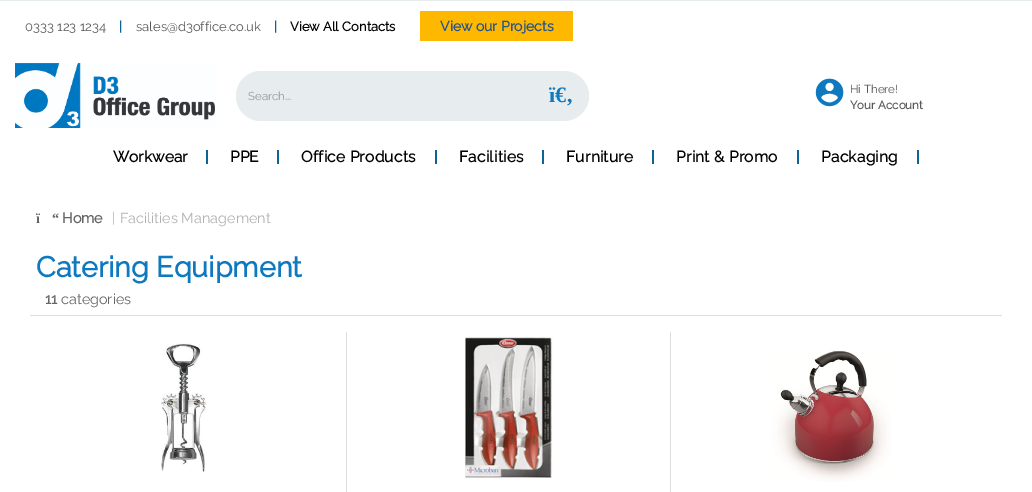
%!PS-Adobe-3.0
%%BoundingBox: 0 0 1032 492
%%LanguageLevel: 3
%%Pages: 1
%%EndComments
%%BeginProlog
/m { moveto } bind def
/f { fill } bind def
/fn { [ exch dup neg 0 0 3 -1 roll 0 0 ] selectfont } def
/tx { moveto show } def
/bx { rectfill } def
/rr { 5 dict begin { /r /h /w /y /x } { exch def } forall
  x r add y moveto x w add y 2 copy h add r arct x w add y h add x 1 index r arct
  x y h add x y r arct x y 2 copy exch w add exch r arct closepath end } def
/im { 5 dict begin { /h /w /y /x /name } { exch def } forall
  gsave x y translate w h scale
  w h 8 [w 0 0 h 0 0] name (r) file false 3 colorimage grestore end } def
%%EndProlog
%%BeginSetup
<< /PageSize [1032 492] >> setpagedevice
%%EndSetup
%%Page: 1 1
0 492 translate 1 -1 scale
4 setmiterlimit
1 setgray
0 0 1032 492 bx
0.906 0.925 0.933 setrgbcolor
0 0 1032 1 bx
/Raleway-Thin 13 fn
0.345 0.349 0.357 setrgbcolor
(0333 123 1234) 25 31 tx
/Raleway-Bold 13 fn
0.059 0.388 0.573 setrgbcolor
(|) 119 31 tx
/Raleway-Thin 13 fn
0.345 0.349 0.357 setrgbcolor
(sales@d3office.co.uk) 136 31 tx
/Raleway-Bold 13 fn
0.059 0.388 0.573 setrgbcolor
(|) 274 31 tx
0 setgray
(View All Contacts) 290 31 tx
1 0.722 0 setrgbcolor
420 11 153 30 bx
/Raleway-Bold 14 fn
0.137 0.325 0.561 setrgbcolor
(View our Projects) 440 31 tx
(image0.raw) 15 63 200 65 im
0.906 0.925 0.933 setrgbcolor
236 71 353 50 25 rr f
/Raleway-Thin 11.5 fn
0.6 setgray
(Search...) 248 100 tx
/LiberationSerif-Bold 22 fn
0.059 0.475 0.749 setrgbcolor
(ï€‚) 549 102 tx
(image1.raw) 815 78 29 29 im
/Raleway-Thin 11.5 fn
0.345 0.349 0.357 setrgbcolor
(Hi There!) 850 93 tx
/Raleway-Bold 11.5 fn
(Your Account) 850 109 tx
0.059 0.388 0.573 setrgbcolor
206 150 2 14 bx
/Raleway-Bold 15.5 fn
0 setgray
(Workwear) 113 162 tx
0.059 0.388 0.573 setrgbcolor
277 150 2 14 bx
0 setgray
(PPE) 230 162 tx
0.059 0.388 0.573 setrgbcolor
435 150 2 14 bx
0 setgray
301 162 m 0.25 0 (Office Products) ashow
0.059 0.388 0.573 setrgbcolor
542 150 2 14 bx
0 setgray
459 162 m 0.25 0 (Facilities) ashow
0.059 0.388 0.573 setrgbcolor
652 150 2 14 bx
0 setgray
566 162 m 0.25 0 (Furniture) ashow
0.059 0.388 0.573 setrgbcolor
797 150 2 14 bx
0 setgray
676 162 m 0.25 0 (Print & Promo) ashow
0.059 0.388 0.573 setrgbcolor
917 150 2 14 bx
0 setgray
821 162 m 0.25 0 (Packaging) ashow
/LiberationSerif-Bold 14.4 fn
0.396 setgray
(ï) 36 223 tx
(“) 52 223 tx
/Raleway-Bold 14.4 fn
(Home) 62 223 tx
/Raleway-Thin 14.4 fn
0.698 setgray
(|) 112 223 tx
(Facilities Management) 120 223 tx
/Raleway-Bold 28.75 fn
0.059 0.475 0.749 setrgbcolor
(Catering Equipment) 36 277 tx
/Raleway-Bold 14.4 fn
0.396 setgray
(11) 45 304 tx
/Raleway-Thin 14.4 fn
(categories) 61 304 tx
0.867 setgray
30 315 972 1 bx
346 332 1 160 bx
(image2.raw) 161 343 46 129 im
670 332 1 160 bx
(image3.raw) 464 337 89 141 im
(image4.raw) 771 350 120 132 im
showpage
%%EOF
